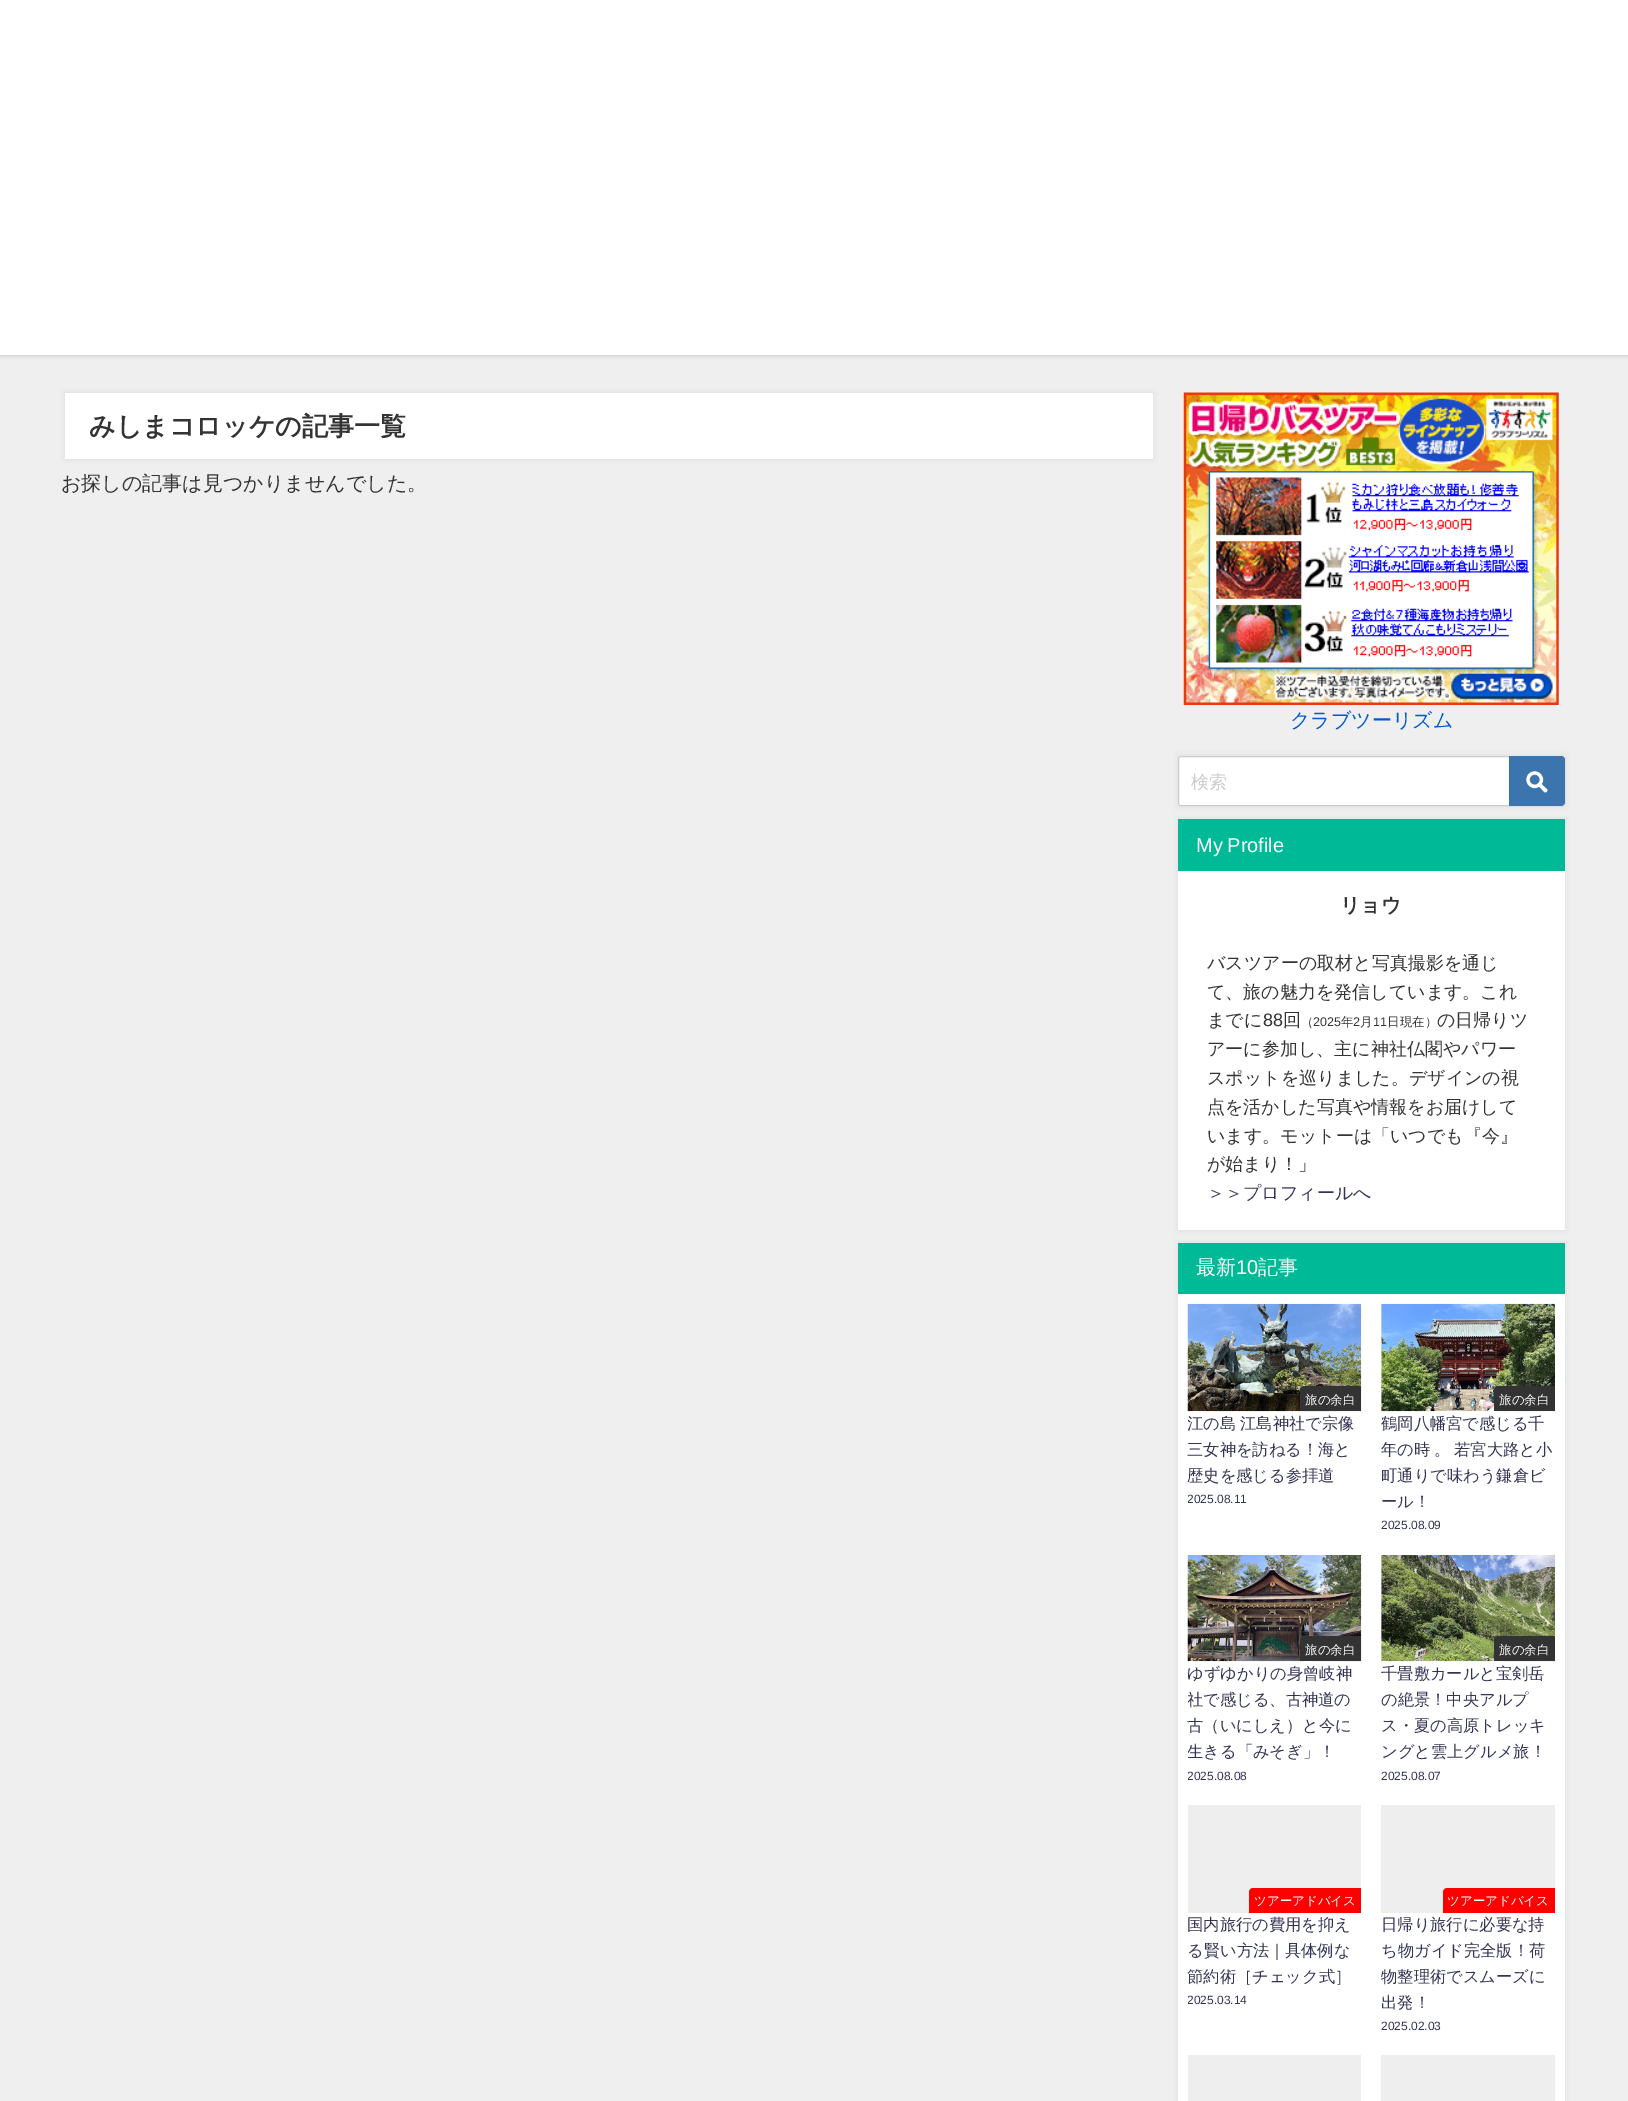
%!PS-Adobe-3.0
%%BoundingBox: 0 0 1628 2101
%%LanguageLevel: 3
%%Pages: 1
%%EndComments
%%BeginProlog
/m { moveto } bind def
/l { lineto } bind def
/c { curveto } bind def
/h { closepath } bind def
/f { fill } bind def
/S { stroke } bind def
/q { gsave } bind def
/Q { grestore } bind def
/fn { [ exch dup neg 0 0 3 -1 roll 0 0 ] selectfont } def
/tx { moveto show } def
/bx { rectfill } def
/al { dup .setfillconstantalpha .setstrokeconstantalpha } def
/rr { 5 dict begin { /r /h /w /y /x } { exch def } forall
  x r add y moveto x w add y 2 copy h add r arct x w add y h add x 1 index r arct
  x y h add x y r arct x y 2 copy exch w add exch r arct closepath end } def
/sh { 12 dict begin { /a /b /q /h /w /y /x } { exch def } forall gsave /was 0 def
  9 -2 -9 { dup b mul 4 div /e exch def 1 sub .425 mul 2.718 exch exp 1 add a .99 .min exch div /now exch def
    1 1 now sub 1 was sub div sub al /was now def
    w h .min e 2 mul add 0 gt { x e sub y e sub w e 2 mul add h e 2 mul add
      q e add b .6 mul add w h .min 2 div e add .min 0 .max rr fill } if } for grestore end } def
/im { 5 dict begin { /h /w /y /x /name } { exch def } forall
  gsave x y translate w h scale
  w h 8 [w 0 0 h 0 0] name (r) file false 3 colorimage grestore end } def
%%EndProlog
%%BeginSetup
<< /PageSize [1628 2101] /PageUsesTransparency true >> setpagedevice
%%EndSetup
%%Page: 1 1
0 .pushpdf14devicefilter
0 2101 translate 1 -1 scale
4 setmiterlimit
0.937 setgray
0 0 1628 2101 bx
0 setgray
0 -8 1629 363 0 2.5 0.2 sh
1 setgray
0 0 1628 355 bx
0.588 setgray
65 393 1088 66 0 3 0.2 sh
1 setgray
65 393 1088 66 bx
/WenQuanYiZenHei-Bold 26 fn
0.2 setgray
(みしまコロッケの記事一覧) 89 435 tx
/WenQuanYiZenHei-Medium 20 fn
(お探しの記事は見つかりませんでした。) 61 490 tx
(image0.raw) 1183 392 376 313 im
0 0.353 0.8 setrgbcolor
(クラブツーリズム) 1290 727 tx
0.588 setgray
1178 756 387 50 0 3 0.2 sh
1 setgray
1178 756 387 50 bx
0.8 setgray
1178.5 756.5 386 49 2 rr S
/WenQuanYiZenHei-Medium 18 fn
(検索) 1191 788 tx
0.235 0.455 0.678 setrgbcolor
1509 756 m 1561 756 l 1563 756 1565 758 1565 760 c 1565 802 l 1565 804 1563 806 1561 806 c 1509 806 l h f
(image1.raw) 1526 771 22 22 im
0.588 setgray
1178 819 387 411 0 3 0.2 sh
1 setgray
1178 871 387 359 bx
0 0.725 0.592 setrgbcolor
1178 819 387 52 bx
/LiberationSans-Regular 20 fn
1 setgray
1196 852 m -1 0 32 (My Profile) widthshow
/WenQuanYiZenHei-Bold 20 fn
0.2 setgray
(リョウ) 1340 912 tx
/WenQuanYiZenHei-Medium 18 fn
(バスツアーの取材と写真撮影を通じ) 1207 969 tx
(て、旅の魅力を発信しています。これ) 1207 998 tx
(までに) 1207 1026 tx
/LiberationSans-Regular 18 fn
(88) 1263 1026 tx
/WenQuanYiZenHei-Medium 18 fn
(回) 1283 1026 tx
/WenQuanYiZenHei-Medium 12.5 fn
(（) 1301 1026 tx
/LiberationSans-Regular 12.5 fn
(2025) 1313 1026 tx
/WenQuanYiZenHei-Medium 12.5 fn
(年) 1341 1026 tx
/LiberationSans-Regular 12.5 fn
(2) 1353 1026 tx
/WenQuanYiZenHei-Medium 12.5 fn
(月) 1360 1026 tx
/LiberationSans-Regular 12.5 fn
(11) 1373 1026 tx
/WenQuanYiZenHei-Medium 12.5 fn
(日現在）) 1387 1026 tx
/WenQuanYiZenHei-Medium 18 fn
(の日帰りツ) 1437 1026 tx
(アーに参加し、主に神社仏閣やパワー) 1207 1055 tx
(スポットを巡りました。デザインの視) 1207 1084 tx
(点を活かした写真や情報をお届けして) 1207 1113 tx
(います。モットーは「いつでも『今』) 1207 1142 tx
(が始まり！」) 1207 1170 tx
0.2 0.2 0.333 setrgbcolor
(＞＞プロフィールへ) 1207 1199 tx
0.588 setgray
1178 1243 387 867 0 3 0.2 sh
1 setgray
1178 1294 387 807 bx
0 0.725 0.592 setrgbcolor
1178 1243 387 51 bx
/WenQuanYiZenHei-Medium 20 fn
1 setgray
(最新) 1196 1274 tx
/LiberationSans-Regular 20 fn
(10) 1236 1274 tx
/WenQuanYiZenHei-Medium 20 fn
(記事) 1258 1274 tx
(image2.raw) 1187 1303 175 109 im
0.2 setgray
1304 1386 m 1361 1386 l 1361 1411 l 1300 1411 l 1300 1390 l 1300 1388 1302 1386 1304 1386 c h f
/WenQuanYiZenHei-Medium 12.5 fn
1 setgray
(旅の余白) 1305 1404 tx
q
1188 1411 173 98 rectclip
/WenQuanYiZenHei-Medium 16.25 fn
0.2 0.2 0.333 setrgbcolor
1187 1429 m -1 0 32 (江の島 江島神社で宗像) widthshow
Q
/WenQuanYiZenHei-Medium 16.25 fn
0.2 0.2 0.333 setrgbcolor
(三女神を訪ねる！海と) 1187 1455 tx
(歴史を感じる参拝道) 1187 1481 tx
q
1188 1411 173 98 rectclip
/LiberationSans-Regular 12 fn
(2025.08.11) 1187 1503 tx
Q
0.933 setgray
1381 1304 1 107 bx
(image3.raw) 1381 1303 174 109 im
0.2 setgray
1498 1386 m 1555 1386 l 1555 1411 l 1494 1411 l 1494 1390 l 1494 1388 1496 1386 1498 1386 c h f
/WenQuanYiZenHei-Medium 12.5 fn
1 setgray
(旅の余白) 1499 1404 tx
/WenQuanYiZenHei-Medium 16.25 fn
0.2 0.2 0.333 setrgbcolor
(鶴岡八幡宮で感じる千) 1381 1429 tx
1381 1455 m -1 0 32 (年の時 。 若宮大路と小) widthshow
(町通りで味わう鎌倉ビ) 1381 1481 tx
(ール！) 1381 1507 tx
/LiberationSans-Regular 12 fn
(2025.08.09) 1381 1529 tx
(image4.raw) 1187 1555 175 107 im
0.2 setgray
1304 1636 m 1361 1636 l 1361 1661 l 1300 1661 l 1300 1640 l 1300 1638 1302 1636 1304 1636 c h f
/WenQuanYiZenHei-Medium 12.5 fn
1 setgray
(旅の余白) 1305 1654 tx
/WenQuanYiZenHei-Medium 16.25 fn
0.2 0.2 0.333 setrgbcolor
(ゆずゆかりの身曾岐神) 1187 1679 tx
q
1188 1661 173 124 rectclip
(社で感じる、古神道の) 1187 1705 tx
Q
(古（いにしえ）と今に) 1187 1731 tx
q
1188 1661 173 124 rectclip
(生きる「みそぎ」！) 1187 1757 tx
/LiberationSans-Regular 12 fn
(2025.08.08) 1187 1780 tx
Q
0.933 setgray
1381 1555 1 106 bx
(image5.raw) 1381 1555 174 107 im
0.2 setgray
1498 1636 m 1555 1636 l 1555 1661 l 1494 1661 l 1494 1640 l 1494 1638 1496 1636 1498 1636 c h f
/WenQuanYiZenHei-Medium 12.5 fn
1 setgray
(旅の余白) 1499 1654 tx
/WenQuanYiZenHei-Medium 16.25 fn
0.2 0.2 0.333 setrgbcolor
(千畳敷カールと宝剣岳) 1381 1679 tx
(の絶景！中央アルプ) 1381 1705 tx
(ス・夏の高原トレッキ) 1381 1731 tx
(ングと雲上グルメ旅！) 1381 1757 tx
/LiberationSans-Regular 12 fn
(2025.08.07) 1381 1780 tx
0.933 setgray
1188 1805 173 108 bx
1 0 0 setrgbcolor
1253 1888 m 1361 1888 l 1361 1913 l 1249 1913 l 1249 1892 l 1249 1890 1251 1888 1253 1888 c h f
/WenQuanYiZenHei-Medium 12.5 fn
1 setgray
(ツアーアドバイス) 1254 1905 tx
/WenQuanYiZenHei-Medium 16.25 fn
0.2 0.2 0.333 setrgbcolor
(国内旅行の費用を抑え) 1187 1930 tx
(る賢い方法｜具体例な) 1187 1956 tx
(節約術［チェック式］) 1187 1982 tx
q
1188 1913 173 97 rectclip
/LiberationSans-Regular 12 fn
(2025.03.14) 1187 2004 tx
Q
0.933 setgray
1381 1805 174 108 bx
1 0 0 setrgbcolor
1447 1888 m 1555 1888 l 1555 1913 l 1443 1913 l 1443 1892 l 1443 1890 1445 1888 1447 1888 c h f
/WenQuanYiZenHei-Medium 12.5 fn
1 setgray
(ツアーアドバイス) 1447 1905 tx
/WenQuanYiZenHei-Medium 16.25 fn
0.2 0.2 0.333 setrgbcolor
(日帰り旅行に必要な持) 1381 1930 tx
(ち物ガイド完全版！荷) 1381 1956 tx
(物整理術でスムーズに) 1381 1982 tx
(出発！) 1381 2008 tx
/LiberationSans-Regular 12 fn
(2025.02.03) 1381 2030 tx
0.933 setgray
1188 2055 173 46 bx
1381 2055 174 46 bx
.poppdf14devicefilter showpage
%%EOF
